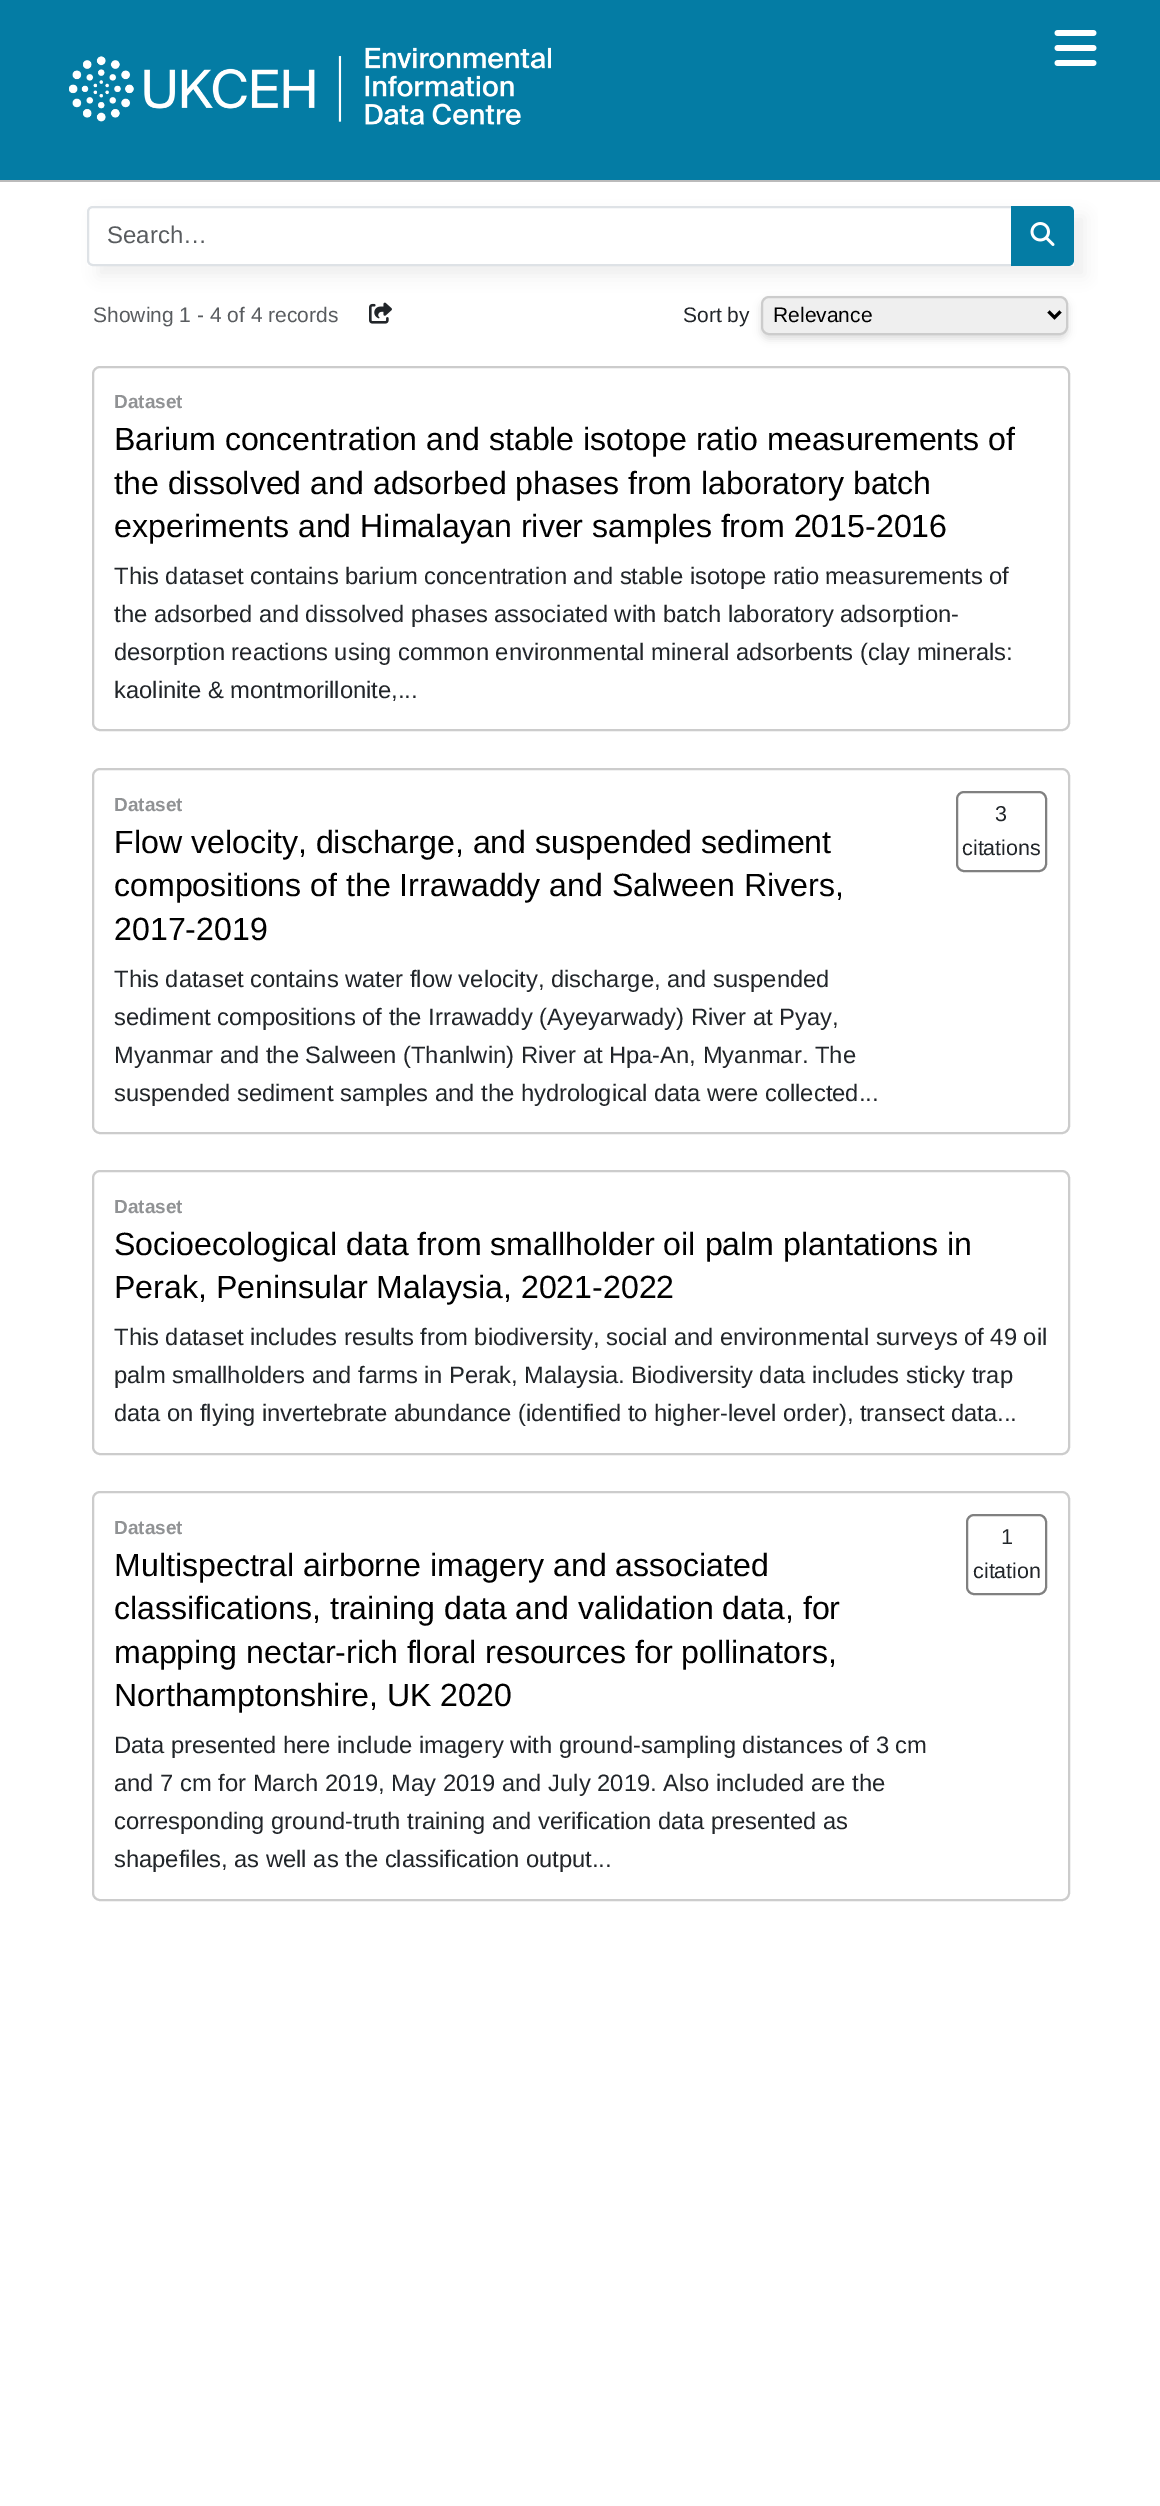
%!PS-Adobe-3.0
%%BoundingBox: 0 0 1160 2506
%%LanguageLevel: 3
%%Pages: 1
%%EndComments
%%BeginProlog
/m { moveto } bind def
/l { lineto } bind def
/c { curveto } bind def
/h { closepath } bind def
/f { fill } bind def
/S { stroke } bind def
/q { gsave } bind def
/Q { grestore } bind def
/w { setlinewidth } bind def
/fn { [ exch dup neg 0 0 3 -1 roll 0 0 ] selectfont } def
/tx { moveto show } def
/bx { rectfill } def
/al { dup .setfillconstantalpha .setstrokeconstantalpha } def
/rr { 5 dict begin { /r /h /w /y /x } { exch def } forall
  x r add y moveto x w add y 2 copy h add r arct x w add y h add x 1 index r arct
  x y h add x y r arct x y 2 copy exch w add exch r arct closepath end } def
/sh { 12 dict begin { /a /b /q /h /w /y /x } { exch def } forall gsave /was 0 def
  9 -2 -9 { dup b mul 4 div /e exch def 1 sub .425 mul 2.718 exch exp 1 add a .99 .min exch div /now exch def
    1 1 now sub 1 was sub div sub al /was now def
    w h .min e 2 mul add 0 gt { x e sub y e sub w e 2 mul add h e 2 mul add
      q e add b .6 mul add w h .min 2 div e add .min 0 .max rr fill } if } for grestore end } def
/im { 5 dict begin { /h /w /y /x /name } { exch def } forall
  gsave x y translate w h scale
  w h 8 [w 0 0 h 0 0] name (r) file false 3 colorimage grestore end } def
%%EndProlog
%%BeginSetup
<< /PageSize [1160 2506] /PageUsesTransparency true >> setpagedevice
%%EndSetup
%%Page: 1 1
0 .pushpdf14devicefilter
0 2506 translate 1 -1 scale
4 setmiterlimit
1 setgray
0 0 1160 2506 bx
0.016 0.486 0.643 setrgbcolor
0 0 1160 180 bx
0.733 setgray
0 180 1160 2 bx
(image0.raw) 69 47 482 78 im
(image1.raw) 1054 30 43 36 im
0.867 setgray
761 300 307 39 8 4 1 sh
0.937 setgray
762 297 305 37 7 rr q f Q
0.8 setgray
2 w
S
q
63 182 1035 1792 rectclip
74 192 m 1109 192 l 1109 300 l 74 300 l h 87 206 m 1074 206 l 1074 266 l 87 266 l h eoclip newpath
0.933 setgray
98 216 987 60 0 7.5 1 sh
Q
0.871 0.886 0.902 setrgbcolor
93 207 m 1012 207 l 1012 265 l 93 265 l 90 265 88 263 88 260 c 88 212 l 88 209 90 207 93 207 c h S
/LiberationSans-Regular 24 fn
0.349 0.361 0.373 setrgbcolor
(Search…) 107 243 tx
0.016 0.486 0.643 setrgbcolor
1011 206 m 1068 206 l 1071.5 206 1074 208.5 1074 212 c 1074 260 l 1074 263.5 1071.5 266 1068 266 c 1011 266 l h f
(image2.raw) 1030 222 25 24 im
/LiberationSans-Regular 21 fn
0.349 0.361 0.373 setrgbcolor
(Showing 1 - 4 of 4 records) 93 322 tx
(image3.raw) 369 302 23 22 im
0.129 0.145 0.161 setrgbcolor
(Sort by) 683 322 tx
0 setgray
3 w
1048.5 311.5 m 1054.5 317.5 l 1060.5 311.5 l S
(Relevance) 773 322 tx
0.8 setgray
2 w
93 367 976 363 7 rr S
/LiberationSans-Bold 19 fn
0.565 0.573 0.58 setrgbcolor
(Dataset) 114 408 tx
/LiberationSans-Regular 32.1 fn
0 setgray
(Barium concentration and stable isotope ratio measurements of) 114 450 tx
(the dissolved and adsorbed phases from laboratory batch) 114 494 tx
(experiments and Himalayan river samples from 2015-2016) 114 537 tx
/LiberationSans-Regular 23.75 fn
0.129 0.145 0.161 setrgbcolor
(This dataset contains barium concentration and stable isotope ratio measurements of) 114 584 tx
(the adsorbed and dissolved phases associated with batch laboratory adsorption-) 114 622 tx
(desorption reactions using common environmental mineral adsorbents \(clay minerals:) 114 660 tx
(kaolinite & montmorillonite,...) 114 698 tx
0.8 setgray
93 769 976 364 7 rr S
/LiberationSans-Bold 19 fn
0.565 0.573 0.58 setrgbcolor
(Dataset) 114 811 tx
/LiberationSans-Regular 32.1 fn
0 setgray
(Flow velocity, discharge, and suspended sediment) 114 853 tx
(compositions of the Irrawaddy and Salween Rivers,) 114 896 tx
(2017-2019) 114 940 tx
/LiberationSans-Regular 23.75 fn
0.129 0.145 0.161 setrgbcolor
(This dataset contains water flow velocity, discharge, and suspended) 114 987 tx
(sediment compositions of the Irrawaddy \(Ayeyarwady\) River at Pyay,) 114 1025 tx
(Myanmar and the Salween \(Thanlwin\) River at Hpa-An, Myanmar. The) 114 1063 tx
(suspended sediment samples and the hydrological data were collected...) 114 1101 tx
0.502 setgray
957 792 89 79 7 rr S
/LiberationSans-Regular 21.5 fn
0.129 0.145 0.161 setrgbcolor
(3) 995 821 tx
(citations) 962 855 tx
0.8 setgray
93 1171 976 283 7 rr S
/LiberationSans-Bold 19 fn
0.565 0.573 0.58 setrgbcolor
(Dataset) 114 1213 tx
/LiberationSans-Regular 32.1 fn
0 setgray
(Socioecological data from smallholder oil palm plantations in) 114 1255 tx
(Perak, Peninsular Malaysia, 2021-2022) 114 1298 tx
/LiberationSans-Regular 23.75 fn
0.129 0.145 0.161 setrgbcolor
(This dataset includes results from biodiversity, social and environmental surveys of 49 oil) 114 1345 tx
(palm smallholders and farms in Perak, Malaysia. Biodiversity data includes sticky trap) 114 1383 tx
(data on flying invertebrate abundance \(identified to higher-level order\), transect data...) 114 1421 tx
0.8 setgray
93 1492 976 408 7 rr S
/LiberationSans-Bold 19 fn
0.565 0.573 0.58 setrgbcolor
(Dataset) 114 1534 tx
/LiberationSans-Regular 32.1 fn
0 setgray
(Multispectral airborne imagery and associated) 114 1576 tx
(classifications, training data and validation data, for) 114 1619 tx
(mapping nectar-rich floral resources for pollinators,) 114 1663 tx
(Northamptonshire, UK 2020) 114 1706 tx
/LiberationSans-Regular 23.75 fn
0.129 0.145 0.161 setrgbcolor
(Data presented here include imagery with ground-sampling distances of 3 cm) 114 1753 tx
(and 7 cm for March 2019, May 2019 and July 2019. Also included are the) 114 1791 tx
(corresponding ground-truth training and verification data presented as) 114 1829 tx
(shapefiles, as well as the classification output...) 114 1867 tx
0.502 setgray
967 1515 79 79 7 rr S
/LiberationSans-Regular 21.5 fn
0.129 0.145 0.161 setrgbcolor
(1) 1001 1544 tx
(citation) 973 1578 tx
.poppdf14devicefilter showpage
%%EOF
